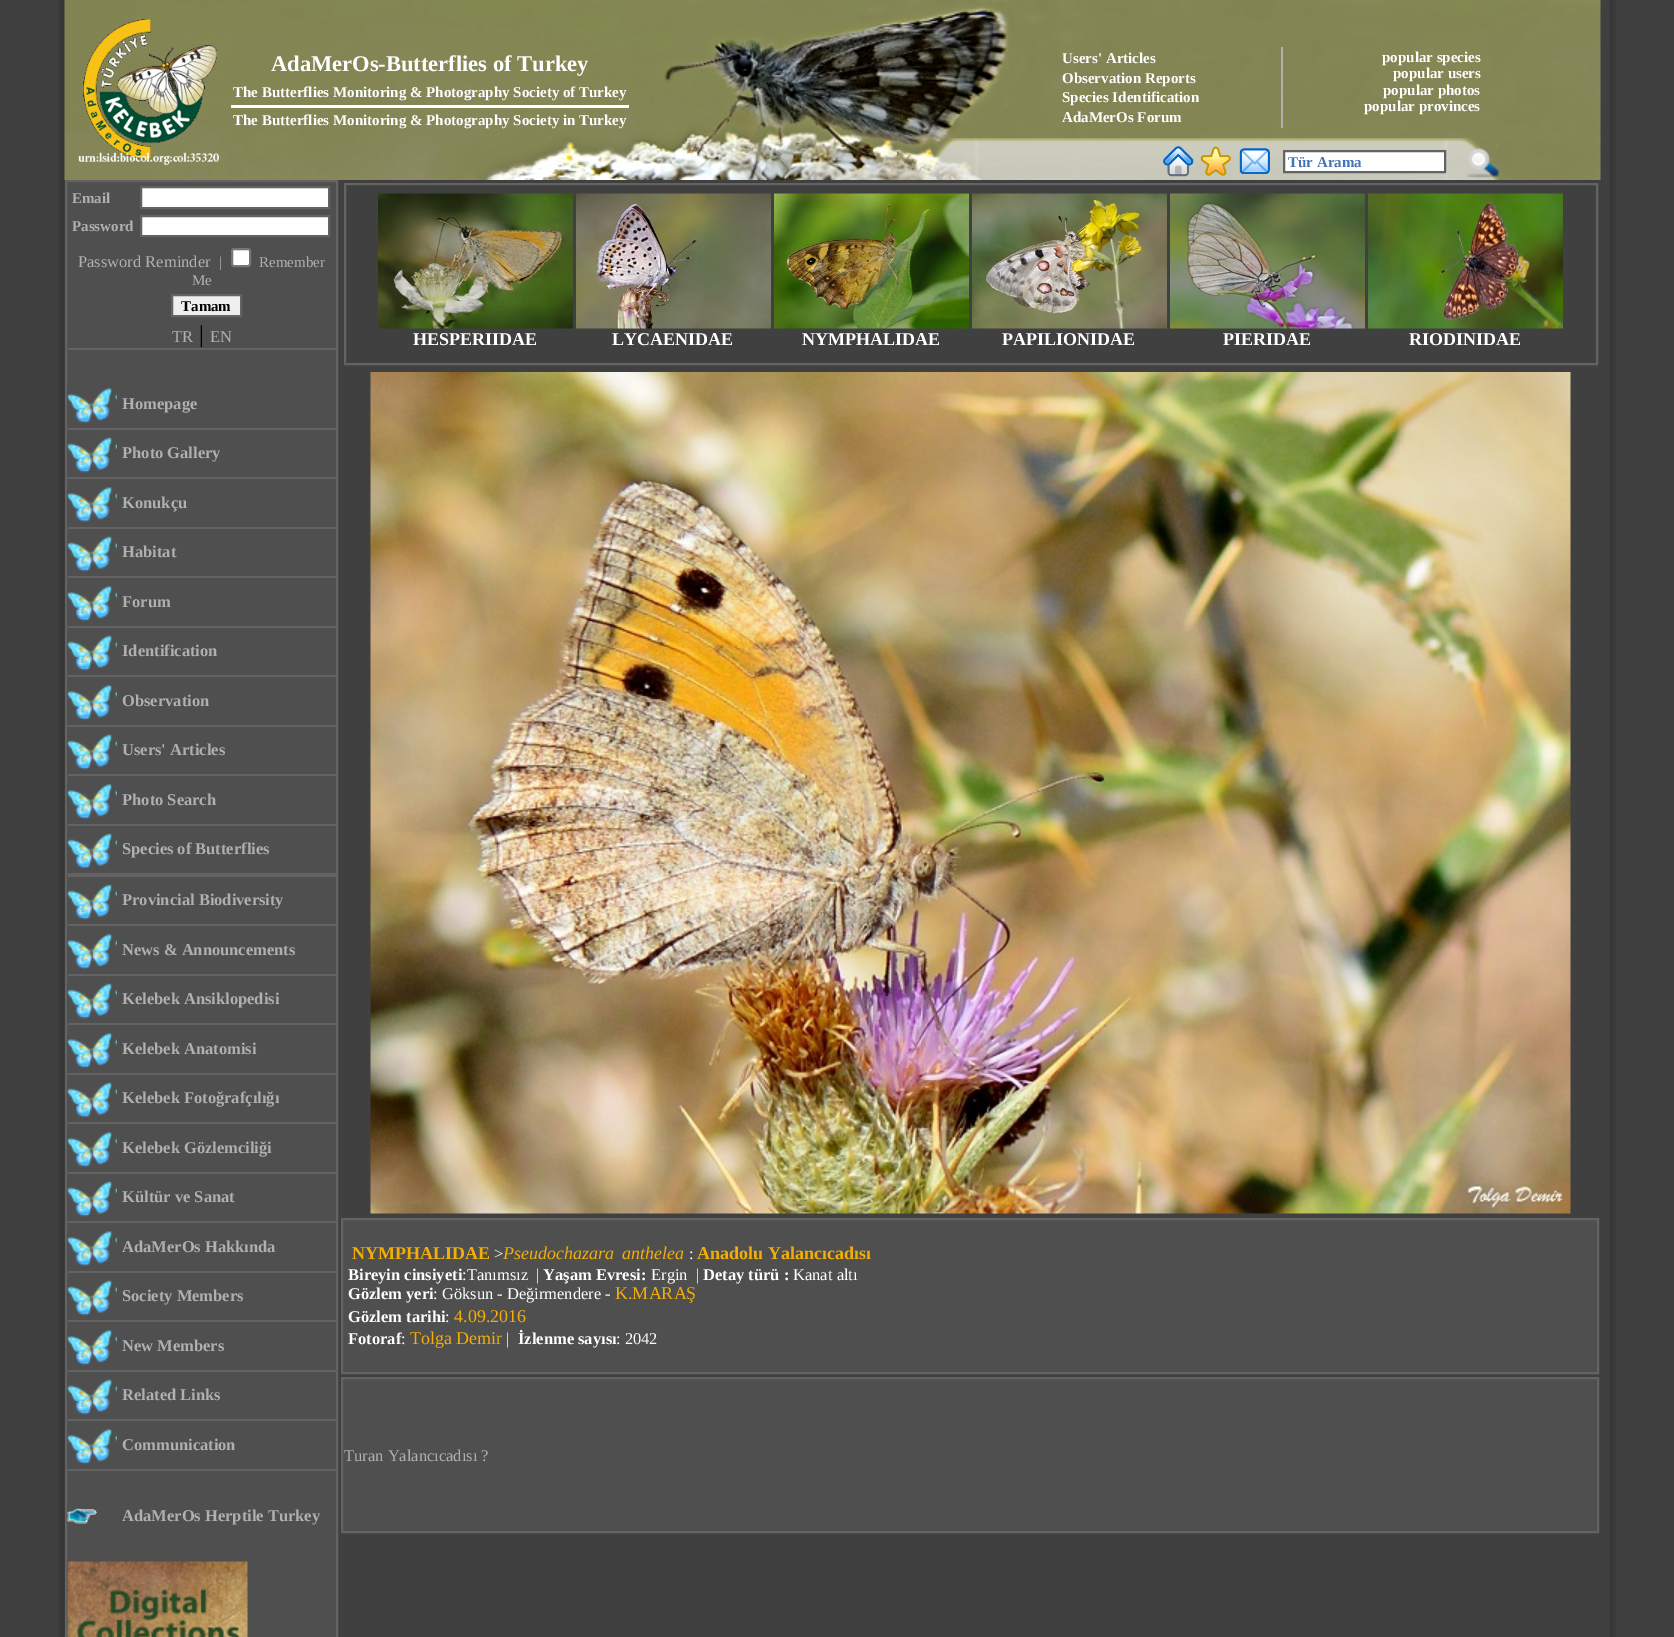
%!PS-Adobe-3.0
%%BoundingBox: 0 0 1674 1637
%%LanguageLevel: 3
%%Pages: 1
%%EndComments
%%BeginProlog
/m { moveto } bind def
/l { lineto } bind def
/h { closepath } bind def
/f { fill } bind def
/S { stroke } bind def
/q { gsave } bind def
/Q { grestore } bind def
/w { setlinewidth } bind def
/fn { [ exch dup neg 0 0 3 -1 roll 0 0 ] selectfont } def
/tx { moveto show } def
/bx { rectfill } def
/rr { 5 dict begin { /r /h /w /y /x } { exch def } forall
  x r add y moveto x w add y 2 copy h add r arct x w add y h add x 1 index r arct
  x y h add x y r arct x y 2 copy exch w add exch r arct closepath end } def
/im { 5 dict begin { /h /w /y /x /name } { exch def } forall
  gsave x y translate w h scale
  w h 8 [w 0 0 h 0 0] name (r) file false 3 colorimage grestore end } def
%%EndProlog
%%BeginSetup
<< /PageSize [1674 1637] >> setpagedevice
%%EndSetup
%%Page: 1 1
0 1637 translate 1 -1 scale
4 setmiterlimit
0.251 setgray
0 0 1674 1637 bx
(image0.raw) 58 0 7 1637 im
(image1.raw) 64 0 1537 180 im
(image2.raw) 78 19 141 146 im
/LiberationSerif-Bold 22.5 fn
1 setgray
(AdaMerOs-Butterflies of Turkey) 271 71 tx
/LiberationSerif-Bold 15 fn
(The Butterflies Monitoring & Photography Society of Turkey) 233 97 tx
231 105 398 3 bx
(The Butterflies Monitoring & Photography Society in Turkey) 233 125 tx
0.69 setgray
1281 47 2 81 bx
1 setgray
(Users' Articles) 1062 63 tx
(Observation Reports) 1062 83 tx
(Species Identification) 1062 102 tx
(AdaMerOs Forum) 1062 122 tx
(popular species) 1382 62 tx
(popular users) 1393 78 tx
(popular photos) 1383 95 tx
(popular provinces) 1364 111 tx
(image3.raw) 919 138 581 42 im
(image4.raw) 1163 146 31 31 im
(image5.raw) 1200 146 31 30 im
(image6.raw) 1239 148 31 26 im
1284 151 m 1445 151 l 1445 172 l 1284 172 l h q f Q
0.388 setgray
2 w
S
0.267 0.455 0.71 setrgbcolor
(Tür Arama) 1288 167 tx
(image7.raw) 1466 147 34 31 im
0.31 setgray
66 181 m 337 181 l 337 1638 l 66 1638 l h q f Q
0.388 setgray
S
0.69 setgray
(Email) 72 203 tx
1 setgray
141 187 m 329 187 l 329 208 l 141 208 l h q f Q
0.388 setgray
S
0.69 setgray
(Password) 72 231 tx
1 setgray
141 216 m 329 216 l 329 236 l 141 236 l h q f Q
0.388 setgray
S
/LiberationSerif-Regular 16.5 fn
0.69 setgray
(Password Reminder) 78 267 tx
/LiberationSerif-Regular 15 fn
(|) 219 267 tx
1 setgray
232 249 18 17 2 rr q f Q
0.463 setgray
S
0.69 setgray
(Remember) 259 267 tx
(Me) 192 285 tx
0.937 setgray
172 295 m 241 295 l 241 316 l 172 316 l h q f Q
0.388 setgray
S
/LiberationSerif-Bold 15 fn
0 setgray
(Tamam) 181 311 tx
/LiberationSerif-Regular 16.5 fn
0.69 setgray
(TR) 172 342 tx
/LiberationSerif-Regular 24 fn
0 setgray
(|) 199 342 tx
/LiberationSerif-Regular 16.5 fn
0.69 setgray
(EN) 210 342 tx
0.388 setgray
68 348 268 2 bx
(image8.raw) 67 388 50 36 im
/LiberationSerif-Bold 16.5 fn
0.69 setgray
(Homepage) 122 409 tx
0.388 setgray
68 428 268 2 bx
(image9.raw) 67 437 50 36 im
0.69 setgray
(Photo Gallery) 122 458 tx
0.388 setgray
68 477 268 2 bx
(image10.raw) 67 487 50 36 im
0.69 setgray
(Konukçu) 122 508 tx
0.388 setgray
68 527 268 2 bx
(image11.raw) 67 536 50 36 im
0.69 setgray
(Habitat) 122 557 tx
0.388 setgray
68 576 268 2 bx
(image12.raw) 67 586 50 36 im
0.69 setgray
(Forum) 122 607 tx
0.388 setgray
68 626 268 2 bx
(image13.raw) 67 635 50 36 im
0.69 setgray
(Identification) 122 656 tx
0.388 setgray
68 675 268 2 bx
(image14.raw) 67 685 50 36 im
0.69 setgray
(Observation) 122 706 tx
0.388 setgray
68 725 268 2 bx
(image15.raw) 67 734 50 36 im
0.69 setgray
(Users' Articles) 122 755 tx
0.388 setgray
68 774 268 2 bx
(image16.raw) 67 784 50 36 im
0.69 setgray
(Photo Search) 122 805 tx
0.388 setgray
68 824 268 2 bx
(image17.raw) 67 833 50 36 im
0.69 setgray
(Species of Butterflies) 122 854 tx
0.388 setgray
68 873 268 4 bx
(image18.raw) 67 884 50 36 im
0.69 setgray
(Provincial Biodiversity) 122 905 tx
0.388 setgray
68 924 268 2 bx
(image19.raw) 67 934 50 36 im
0.69 setgray
(News & Announcements) 122 955 tx
0.388 setgray
68 974 268 2 bx
(image20.raw) 67 983 50 36 im
0.69 setgray
(Kelebek Ansiklopedisi) 122 1004 tx
0.388 setgray
68 1023 268 2 bx
(image21.raw) 67 1033 50 36 im
0.69 setgray
(Kelebek Anatomisi) 122 1054 tx
0.388 setgray
68 1073 268 2 bx
(image22.raw) 67 1082 50 36 im
0.69 setgray
(Kelebek Fotoğrafçılığı) 122 1103 tx
0.388 setgray
68 1122 268 2 bx
(image23.raw) 67 1132 50 36 im
0.69 setgray
(Kelebek Gözlemciliği) 122 1153 tx
0.388 setgray
68 1172 268 2 bx
(image24.raw) 67 1181 50 36 im
0.69 setgray
(Kültür ve Sanat) 122 1202 tx
0.388 setgray
68 1221 268 2 bx
(image25.raw) 67 1231 50 36 im
0.69 setgray
(AdaMerOs Hakkında) 122 1252 tx
0.388 setgray
68 1271 268 2 bx
(image22.raw) 67 1280 50 36 im
0.69 setgray
(Society Members) 122 1301 tx
0.388 setgray
68 1320 268 2 bx
(image26.raw) 67 1330 50 36 im
0.69 setgray
(New Members) 122 1351 tx
0.388 setgray
68 1370 268 2 bx
(image27.raw) 67 1379 50 36 im
0.69 setgray
(Related Links) 122 1400 tx
0.388 setgray
68 1419 268 2 bx
(image28.raw) 67 1429 50 36 im
0.69 setgray
(Communication) 122 1450 tx
0.388 setgray
68 1469 268 2 bx
(image29.raw) 67 1508 30 16 im
0.69 setgray
(AdaMerOs Herptile Turkey) 122 1521 tx
(image30.raw) 67 1561 181 76 im
0.388 setgray
345 184 1252 180 rectstroke
(image31.raw) 378 193 195 136 im
/LiberationSerif-Bold 18 fn
1 setgray
(HESPERIIDAE) 413 345 tx
(image32.raw) 576 193 195 136 im
(LYCAENIDAE) 612 345 tx
(image33.raw) 774 193 195 136 im
(NYMPHALIDAE) 802 345 tx
(image34.raw) 972 193 195 136 im
(PAPILIONIDAE) 1002 345 tx
(image35.raw) 1170 193 195 136 im
(PIERIDAE) 1223 345 tx
(image36.raw) 1368 193 195 136 im
(RIODINIDAE) 1409 345 tx
(image37.raw) 370 372 1201 842 im
0.31 setgray
342 1219 m 1598 1219 l 1598 1373 l 342 1373 l h q f Q
0.388 setgray
S
0.953 0.682 0.027 setrgbcolor
(NYMPHALIDAE) 352 1259 tx
/LiberationSerif-Regular 16.5 fn
1 setgray
(>) 494 1259 tx
/LiberationSerif-Italic 18 fn
0.953 0.682 0.027 setrgbcolor
(Pseudochazara) 503 1259 tx
(anthelea) 622 1259 tx
/LiberationSerif-Regular 16.5 fn
1 setgray
(:) 689 1259 tx
/LiberationSerif-Bold 18 fn
0.953 0.682 0.027 setrgbcolor
(Anadolu Yalancıcadısı) 697 1259 tx
/LiberationSerif-Bold 16.5 fn
1 setgray
(Bireyin cinsiyeti) 348 1280 tx
/LiberationSerif-Regular 16.5 fn
(:Tanımsız) 462 1280 tx
(|) 536 1280 tx
/LiberationSerif-Bold 16.5 fn
(Yaşam Evresi:) 543 1280 tx
/LiberationSerif-Regular 16.5 fn
(Ergin) 651 1280 tx
(|) 696 1280 tx
/LiberationSerif-Bold 16.5 fn
(Detay türü :) 703 1280 tx
/LiberationSerif-Regular 16.5 fn
(Kanat altı) 793 1280 tx
/LiberationSerif-Bold 16.5 fn
(Gözlem yeri) 348 1299 tx
/LiberationSerif-Regular 16.5 fn
(: Göksun - Değirmendere -) 433 1299 tx
/LiberationSerif-Regular 18 fn
0.953 0.682 0.027 setrgbcolor
(K.MARAŞ) 615 1299 tx
/LiberationSerif-Bold 16.5 fn
1 setgray
(Gözlem tarihi) 348 1322 tx
/LiberationSerif-Regular 16.5 fn
(:) 445 1322 tx
/LiberationSerif-Regular 18 fn
0.953 0.682 0.027 setrgbcolor
(4.09.2016) 454 1322 tx
/LiberationSerif-Bold 16.5 fn
1 setgray
(Fotoraf) 348 1344 tx
/LiberationSerif-Regular 16.5 fn
(:) 401 1344 tx
/LiberationSerif-Regular 18 fn
0.953 0.682 0.027 setrgbcolor
(Tolga Demir) 410 1344 tx
/LiberationSerif-Regular 16.5 fn
1 setgray
(|) 506 1344 tx
/LiberationSerif-Bold 16.5 fn
(İzlenme sayısı) 518 1344 tx
/LiberationSerif-Regular 16.5 fn
(: 2042) 616 1344 tx
0.31 setgray
342 1378 m 1598 1378 l 1598 1532 l 342 1532 l h q f Q
0.388 setgray
S
0.69 setgray
(Turan Yalancıcadısı ?) 344 1461 tx
(image38.raw) 1609 0 7 1637 im
showpage
%%EOF
